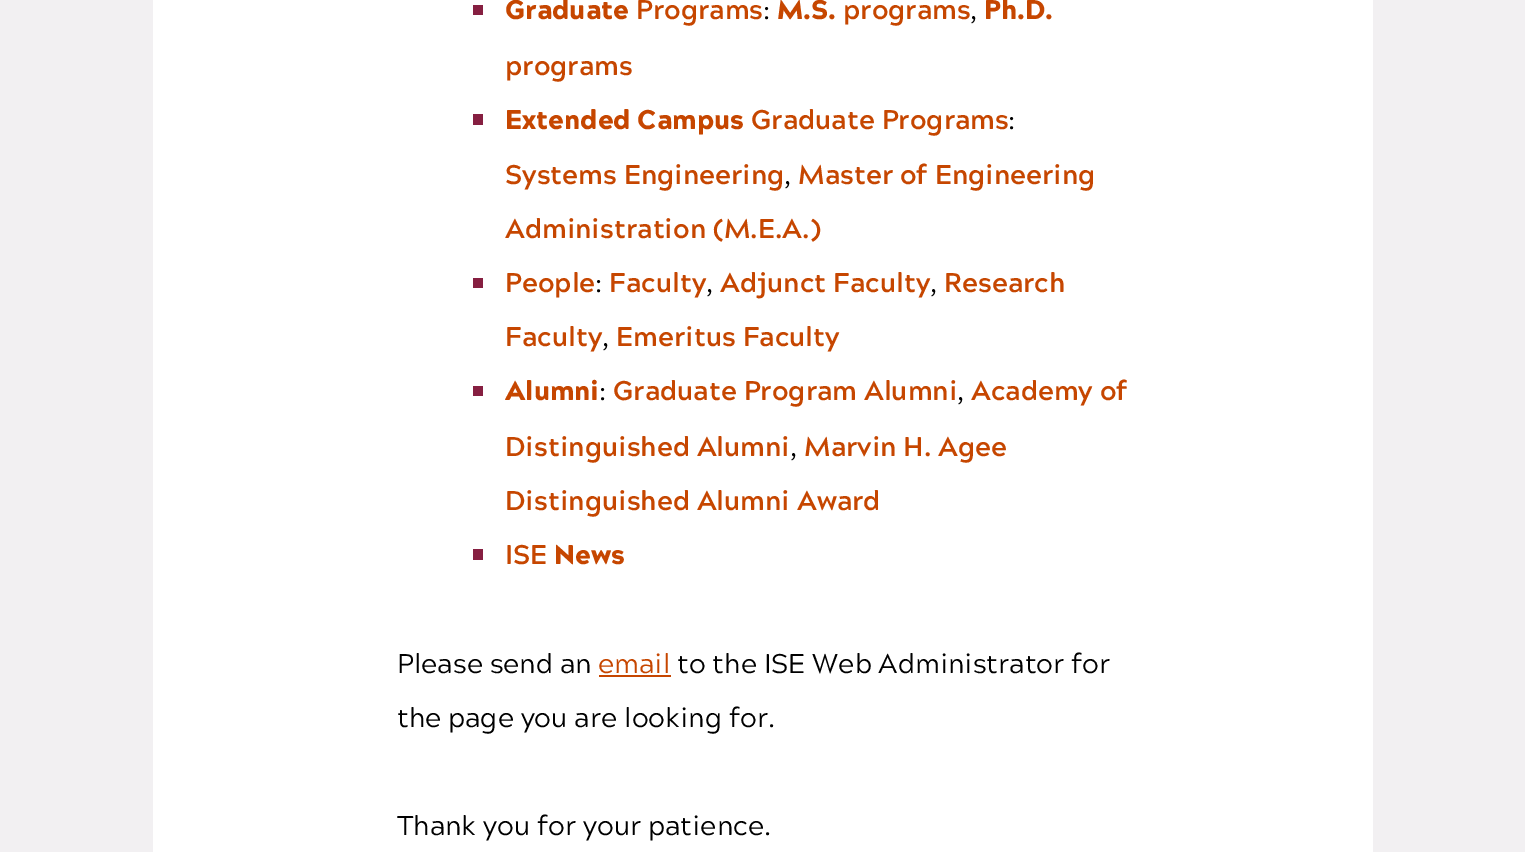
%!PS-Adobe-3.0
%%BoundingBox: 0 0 1525 852
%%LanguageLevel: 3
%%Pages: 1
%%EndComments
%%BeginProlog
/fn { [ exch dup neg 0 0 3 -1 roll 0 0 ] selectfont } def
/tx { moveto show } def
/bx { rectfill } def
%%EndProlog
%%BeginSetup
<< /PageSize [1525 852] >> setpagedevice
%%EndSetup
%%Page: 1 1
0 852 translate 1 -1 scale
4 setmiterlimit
0.949 0.941 0.949 setrgbcolor
0 0 1525 852 bx
1 setgray
153 0 1220 852 bx
0.525 0.122 0.255 setrgbcolor
473 5 10 10 bx
/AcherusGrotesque-Black 27 fn
0.776 0.275 0 setrgbcolor
(Graduate) 505 19 tx
/AcherusGrotesque-Bold 27 fn
(Programs) 636 19 tx
/AcherusGrotesque-Regular 27 fn
0 setgray
(:) 763 19 tx
/AcherusGrotesque-Black 27 fn
0.776 0.275 0 setrgbcolor
(M.S.) 777 19 tx
/AcherusGrotesque-Bold 27 fn
(programs) 843 19 tx
/AcherusGrotesque-Regular 27 fn
0 setgray
(,) 970 19 tx
/AcherusGrotesque-Black 27 fn
0.776 0.275 0 setrgbcolor
(Ph.D.) 984 19 tx
/AcherusGrotesque-Bold 27 fn
(programs) 505 75 tx
0.525 0.122 0.255 setrgbcolor
473 114 10 11 bx
/AcherusGrotesque-Black 27 fn
0.776 0.275 0 setrgbcolor
(Extended Campus) 505 129 tx
/AcherusGrotesque-Bold 27 fn
(Graduate Programs) 751 129 tx
/AcherusGrotesque-Regular 27 fn
0 setgray
(:) 1008 129 tx
/AcherusGrotesque-Bold 27 fn
0.776 0.275 0 setrgbcolor
(Systems Engineering) 505 184 tx
/AcherusGrotesque-Regular 27 fn
0 setgray
(,) 784 184 tx
/AcherusGrotesque-Bold 27 fn
0.776 0.275 0 setrgbcolor
(Master of Engineering) 798 184 tx
(Administration \(M.E.A.\)) 505 238 tx
0.525 0.122 0.255 setrgbcolor
473 278 10 10 bx
0.776 0.275 0 setrgbcolor
(People) 505 292 tx
/AcherusGrotesque-Regular 27 fn
0 setgray
(:) 595 292 tx
/AcherusGrotesque-Bold 27 fn
0.776 0.275 0 setrgbcolor
(Faculty) 609 292 tx
/AcherusGrotesque-Regular 27 fn
0 setgray
(,) 706 292 tx
/AcherusGrotesque-Bold 27 fn
0.776 0.275 0 setrgbcolor
(Adjunct Faculty) 720 292 tx
/AcherusGrotesque-Regular 27 fn
0 setgray
(,) 930 292 tx
/AcherusGrotesque-Bold 27 fn
0.776 0.275 0 setrgbcolor
(Research) 944 292 tx
(Faculty) 505 346 tx
/AcherusGrotesque-Regular 27 fn
0 setgray
(,) 602 346 tx
/AcherusGrotesque-Bold 27 fn
0.776 0.275 0 setrgbcolor
(Emeritus Faculty) 616 346 tx
0.525 0.122 0.255 setrgbcolor
473 386 10 10 bx
/AcherusGrotesque-Black 27 fn
0.776 0.275 0 setrgbcolor
(Alumni) 505 400 tx
/AcherusGrotesque-Regular 27 fn
0 setgray
(:) 599 400 tx
/AcherusGrotesque-Bold 27 fn
0.776 0.275 0 setrgbcolor
(Graduate Program Alumni) 613 400 tx
/AcherusGrotesque-Regular 27 fn
0 setgray
(,) 957 400 tx
/AcherusGrotesque-Bold 27 fn
0.776 0.275 0 setrgbcolor
(Academy of) 971 400 tx
(Distinguished Alumni) 505 456 tx
/AcherusGrotesque-Regular 27 fn
0 setgray
(,) 790 456 tx
/AcherusGrotesque-Bold 27 fn
0.776 0.275 0 setrgbcolor
(Marvin H. Agee) 804 456 tx
(Distinguished Alumni Award) 505 510 tx
0.525 0.122 0.255 setrgbcolor
473 549 10 11 bx
0.776 0.275 0 setrgbcolor
(ISE) 505 564 tx
/AcherusGrotesque-Black 27 fn
(News) 554 564 tx
/AcherusGrotesque-Regular 27 fn
0 setgray
(Please send an) 397 673 tx
0.776 0.275 0 setrgbcolor
(email) 598 673 tx
599 675 72 2 bx
0 setgray
(to the ISE Web Administrator for) 677 673 tx
(the page you are looking for.) 397 727 tx
(Thank you for your patience.) 397 835 tx
showpage
%%EOF
